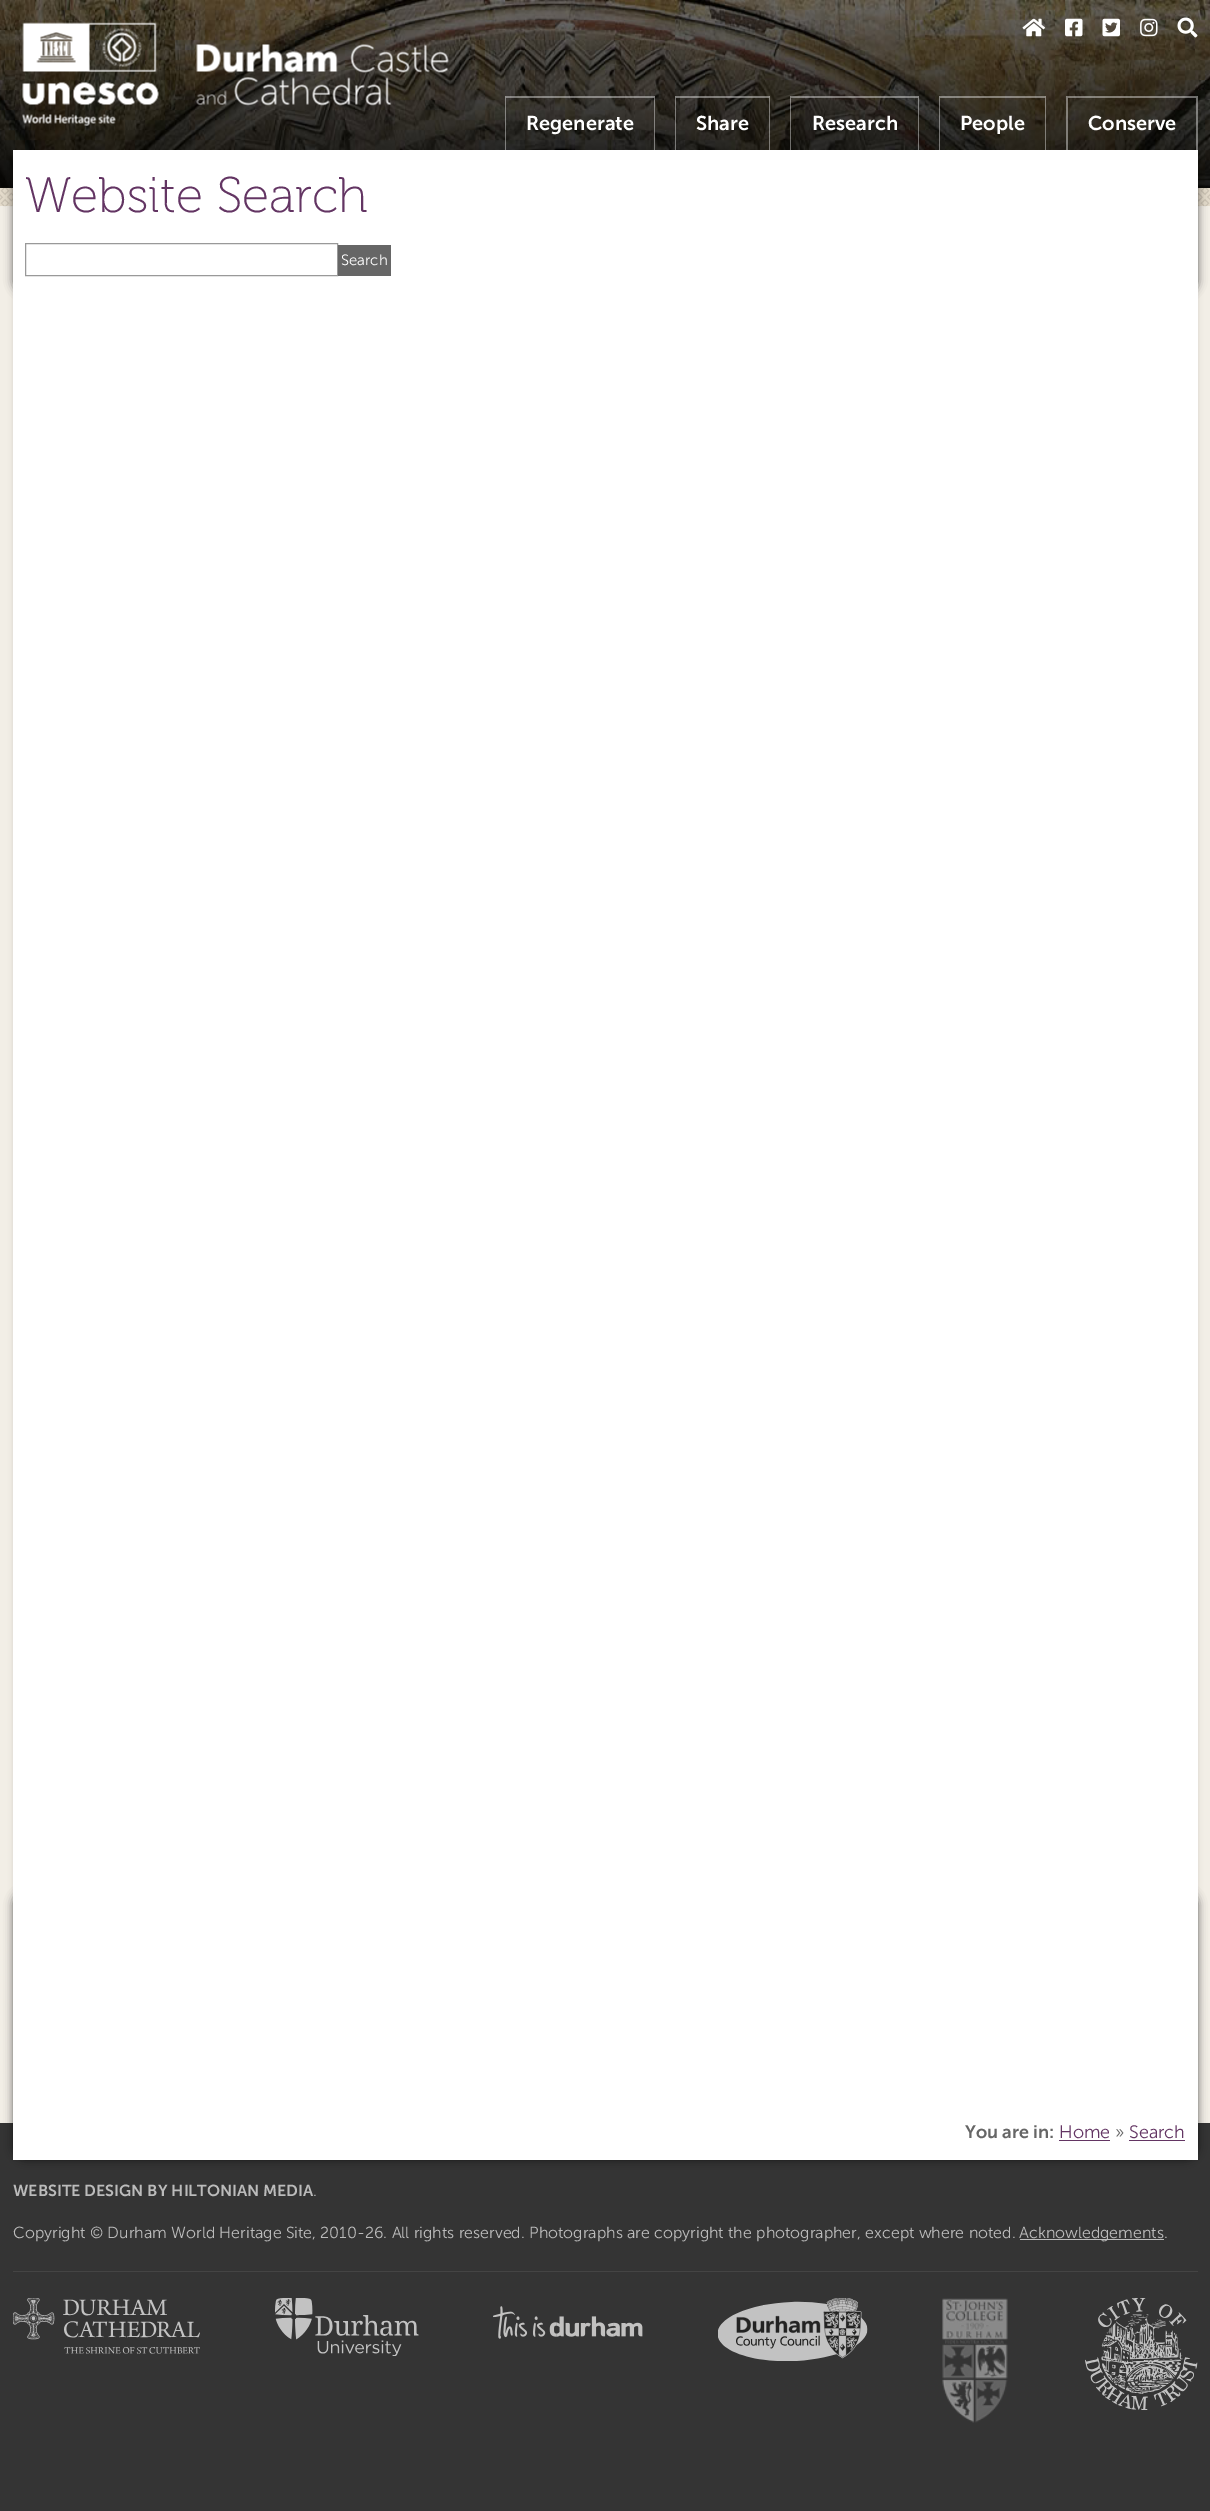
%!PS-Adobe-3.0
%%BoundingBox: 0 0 1210 2511
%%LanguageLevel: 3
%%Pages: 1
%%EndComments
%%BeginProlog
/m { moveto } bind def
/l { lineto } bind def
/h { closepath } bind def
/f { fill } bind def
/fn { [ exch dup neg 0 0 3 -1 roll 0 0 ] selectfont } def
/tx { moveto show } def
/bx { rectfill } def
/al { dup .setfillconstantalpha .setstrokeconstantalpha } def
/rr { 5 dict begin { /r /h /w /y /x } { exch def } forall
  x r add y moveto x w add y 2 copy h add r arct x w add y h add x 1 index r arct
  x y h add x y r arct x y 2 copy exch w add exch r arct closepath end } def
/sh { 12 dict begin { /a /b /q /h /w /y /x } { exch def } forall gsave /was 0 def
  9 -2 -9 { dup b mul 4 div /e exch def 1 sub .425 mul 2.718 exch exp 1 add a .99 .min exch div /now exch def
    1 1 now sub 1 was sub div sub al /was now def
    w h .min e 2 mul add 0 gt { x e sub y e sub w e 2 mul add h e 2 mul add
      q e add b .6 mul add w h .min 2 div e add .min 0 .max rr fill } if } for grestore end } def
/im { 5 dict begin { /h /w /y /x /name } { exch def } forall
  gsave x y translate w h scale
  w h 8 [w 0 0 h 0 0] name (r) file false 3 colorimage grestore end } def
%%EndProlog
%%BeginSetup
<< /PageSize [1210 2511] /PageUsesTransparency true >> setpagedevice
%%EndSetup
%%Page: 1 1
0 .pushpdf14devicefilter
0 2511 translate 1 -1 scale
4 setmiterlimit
0.949 0.933 0.902 setrgbcolor
0 0 1210 2511 bx
0.063 0.067 0.047 setrgbcolor
0 187 1210 1 bx
(image0.raw) 0 0 1210 188 im
0.894 0.859 0.796 setrgbcolor
0 188 1210 18 bx
(image1.raw) 0 188 1210 19 im
0.204 setgray
0 2123 1210 388 bx
0 setgray
13 150 1185 2010 0 2.5 0.1 sh
13 150 1185 144 13 4.5 0.5 sh
(image2.raw) 17 0 1181 150 im
(image3.raw) 22 22 427 104 im
(image4.raw) 1022 18 23 19 im
(image5.raw) 1065 18 18 19 im
(image6.raw) 1102 18 18 19 im
(image7.raw) 1140 18 18 19 im
(image8.raw) 1177 17 21 21 im
0.4 al
1 setgray
505 96 m 655 96 l 654 98 l 506 98 l h f
655 96 m 655 150 l 654 150 l 654 98 l h f
505 150 m 505 96 l 506 98 l 506 150 l h f
/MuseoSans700-SemiBold 20 fn
1 al
(Regenerate) 526 130 tx
0.4 al
675 96 m 770 96 l 769 98 l 676 98 l h f
770 96 m 770 150 l 769 150 l 769 98 l h f
675 150 m 675 96 l 676 98 l 676 150 l h f
1 al
(Share) 696 130 tx
0.4 al
790 96 m 919 96 l 918 98 l 791 98 l h f
919 96 m 919 150 l 918 150 l 918 98 l h f
790 150 m 790 96 l 791 98 l 791 150 l h f
1 al
(Research) 812 130 tx
0.4 al
939 96 m 1046 96 l 1045 98 l 940 98 l h f
1046 96 m 1046 150 l 1045 150 l 1045 98 l h f
939 150 m 939 96 l 940 98 l 940 150 l h f
1 al
(People) 960 130 tx
0.4 al
1066 96 m 1198 96 l 1196 98 l 1068 98 l h f
1198 96 m 1198 150 l 1196 150 l 1196 98 l h f
1066 150 m 1066 96 l 1068 98 l 1068 150 l h f
1 al
(Conserve) 1088 130 tx
0 setgray
13 1891 1185 269 13 4.5 0.5 sh
1 setgray
13 150 1185 2010 bx
/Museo-Light 50 fn
0.388 0.208 0.388 setrgbcolor
(Website Search) 25 212 tx
0.6 setgray
25.5 243.5 312 32 rectstroke
0.4 setgray
338 245 53 31 bx
/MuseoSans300-Light 15 fn
1 setgray
(Search) 341 265 tx
/MuseoSans700-SemiBold 18 fn
0.4 setgray
(You are in:) 965 2138 tx
/MuseoSans300-Light 18 fn
0.388 0.208 0.388 setrgbcolor
(Home) 1059 2138 tx
1059 2140 51 1 bx
0.4 setgray
(») 1115 2138 tx
0.388 0.208 0.388 setrgbcolor
(Search) 1129 2138 tx
1129 2140 56 1 bx
/MuseoSans700-SemiBold 16 fn
0.733 setgray
(WEBSITE DESIGN BY HILTONIAN MEDIA) 13 2196 tx
/MuseoSans300-Light 16 fn
(.) 313 2196 tx
(Copyright © Durham World Heritage Site, 2010-26. All rights reserved. Photographs are copyright the photographer, except where noted.) 13 2238 tx
1020 2239 144 1 bx
(Acknowledgements.) 1019 2238 tx
0.267 setgray
13 2271 1185 1 bx
(image9.raw) 13 2298 187 56 im
(image10.raw) 275 2298 144 58 im
(image11.raw) 493 2306 150 33 im
(image12.raw) 718 2298 150 63 im
(image13.raw) 942 2298 66 125 im
(image14.raw) 1085 2298 113 112 im
.poppdf14devicefilter showpage
%%EOF
